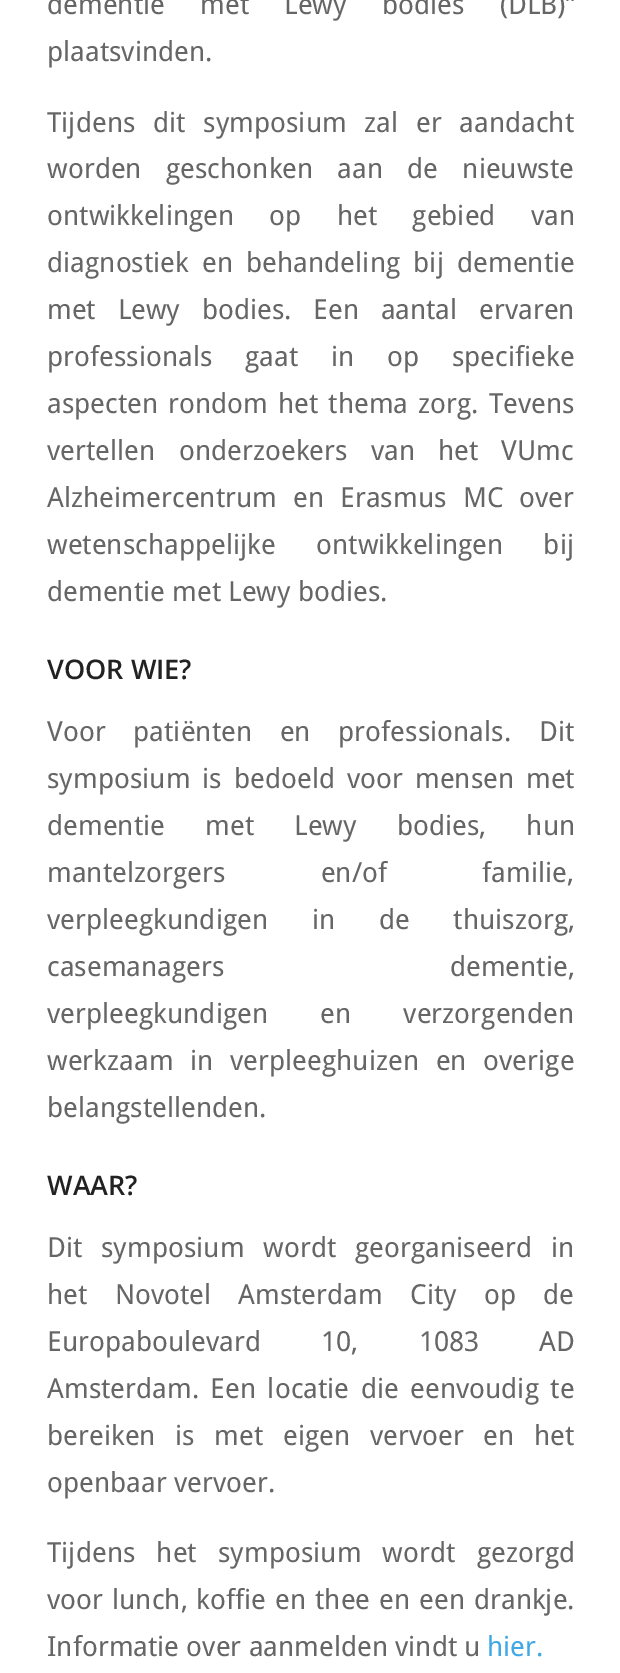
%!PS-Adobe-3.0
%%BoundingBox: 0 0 620 1673
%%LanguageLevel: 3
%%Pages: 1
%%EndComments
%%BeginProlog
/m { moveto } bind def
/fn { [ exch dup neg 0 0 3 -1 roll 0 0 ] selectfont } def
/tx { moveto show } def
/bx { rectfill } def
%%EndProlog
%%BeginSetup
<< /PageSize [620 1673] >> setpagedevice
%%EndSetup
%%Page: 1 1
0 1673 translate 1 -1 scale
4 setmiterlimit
1 setgray
0 0 620 1673 bx
/DroidSans-Regular 27.6 fn
0.4 setgray
47 14 m 28 0 32 (dementie met Lewy bodies \(DLB\)”) widthshow
(plaatsvinden.) 47 61 tx
47 132 m 10.5 0 32 (Tijdens dit symposium zal er aandacht) widthshow
47 178 m 17 0 32 (worden geschonken aan de nieuwste) widthshow
47 225 m 28 0 32 (ontwikkelingen op het gebied van) widthshow
47 272 m 6 0 32 (diagnostiek en behandeling bij dementie) widthshow
47 319 m 14.5 0 32 (met Lewy bodies. Een aantal ervaren) widthshow
47 366 m 25.5 0 32 (professionals gaat in op specifieke) widthshow
47 413 m 2.75 0 32 (aspecten rondom het thema zorg. Tevens) widthshow
47 460 m 16 0 32 (vertellen onderzoekers van het VUmc) widthshow
47 507 m 9 0 32 (Alzheimercentrum en Erasmus MC over) widthshow
47 554 m 33 0 32 (wetenschappelijke ontwikkelingen bij) widthshow
(dementie met Lewy bodies.) 47 601 tx
/OpenSans-SemiBold 27 fn
0.133 setgray
(VOOR WIE?) 47 679 tx
/DroidSans-Regular 27.6 fn
0.4 setgray
47 741 m 20.5 0 32 (Voor patiënten en professionals. Dit) widthshow
47 788 m 4.75 0 32 (symposium is bedoeld voor mensen met) widthshow
47 835 m 33 0 32 (dementie met Lewy bodies, hun) widthshow
47 882 m 88 0 32 (mantelzorgers en/of familie,) widthshow
47 929 m 36.5 0 32 (verpleegkundigen in de thuiszorg,) widthshow
47 976 m 218 0 32 (casemanagers dementie,) widthshow
47 1023 m 45 0 32 (verpleegkundigen en verzorgenden) widthshow
47 1070 m 9.5 0 32 (werkzaam in verpleeghuizen en overige) widthshow
(belangstellenden.) 47 1117 tx
/OpenSans-SemiBold 27 fn
0.133 setgray
(WAAR?) 47 1195 tx
/DroidSans-Regular 27.6 fn
0.4 setgray
47 1257 m 11.5 0 32 (Dit symposium wordt georganiseerd in) widthshow
47 1304 m 20 0 32 (het Novotel Amsterdam City op de) widthshow
47 1351 m 53 0 32 (Europaboulevard 10, 1083 AD) widthshow
47 1398 m 4.25 0 32 (Amsterdam. Een locatie die eenvoudig te) widthshow
47 1445 m 12.5 0 32 (bereiken is met eigen vervoer en het) widthshow
(openbaar vervoer.) 47 1492 tx
47 1562 m 14 0 32 (Tijdens het symposium wordt gezorgd) widthshow
47 1609 m 1.75 0 32 (voor lunch, koffie en thee en een drankje.) widthshow
(Informatie over aanmelden vindt u) 47 1656 tx
0.251 0.659 0.894 setrgbcolor
(hier.) 487 1656 tx
showpage
%%EOF
